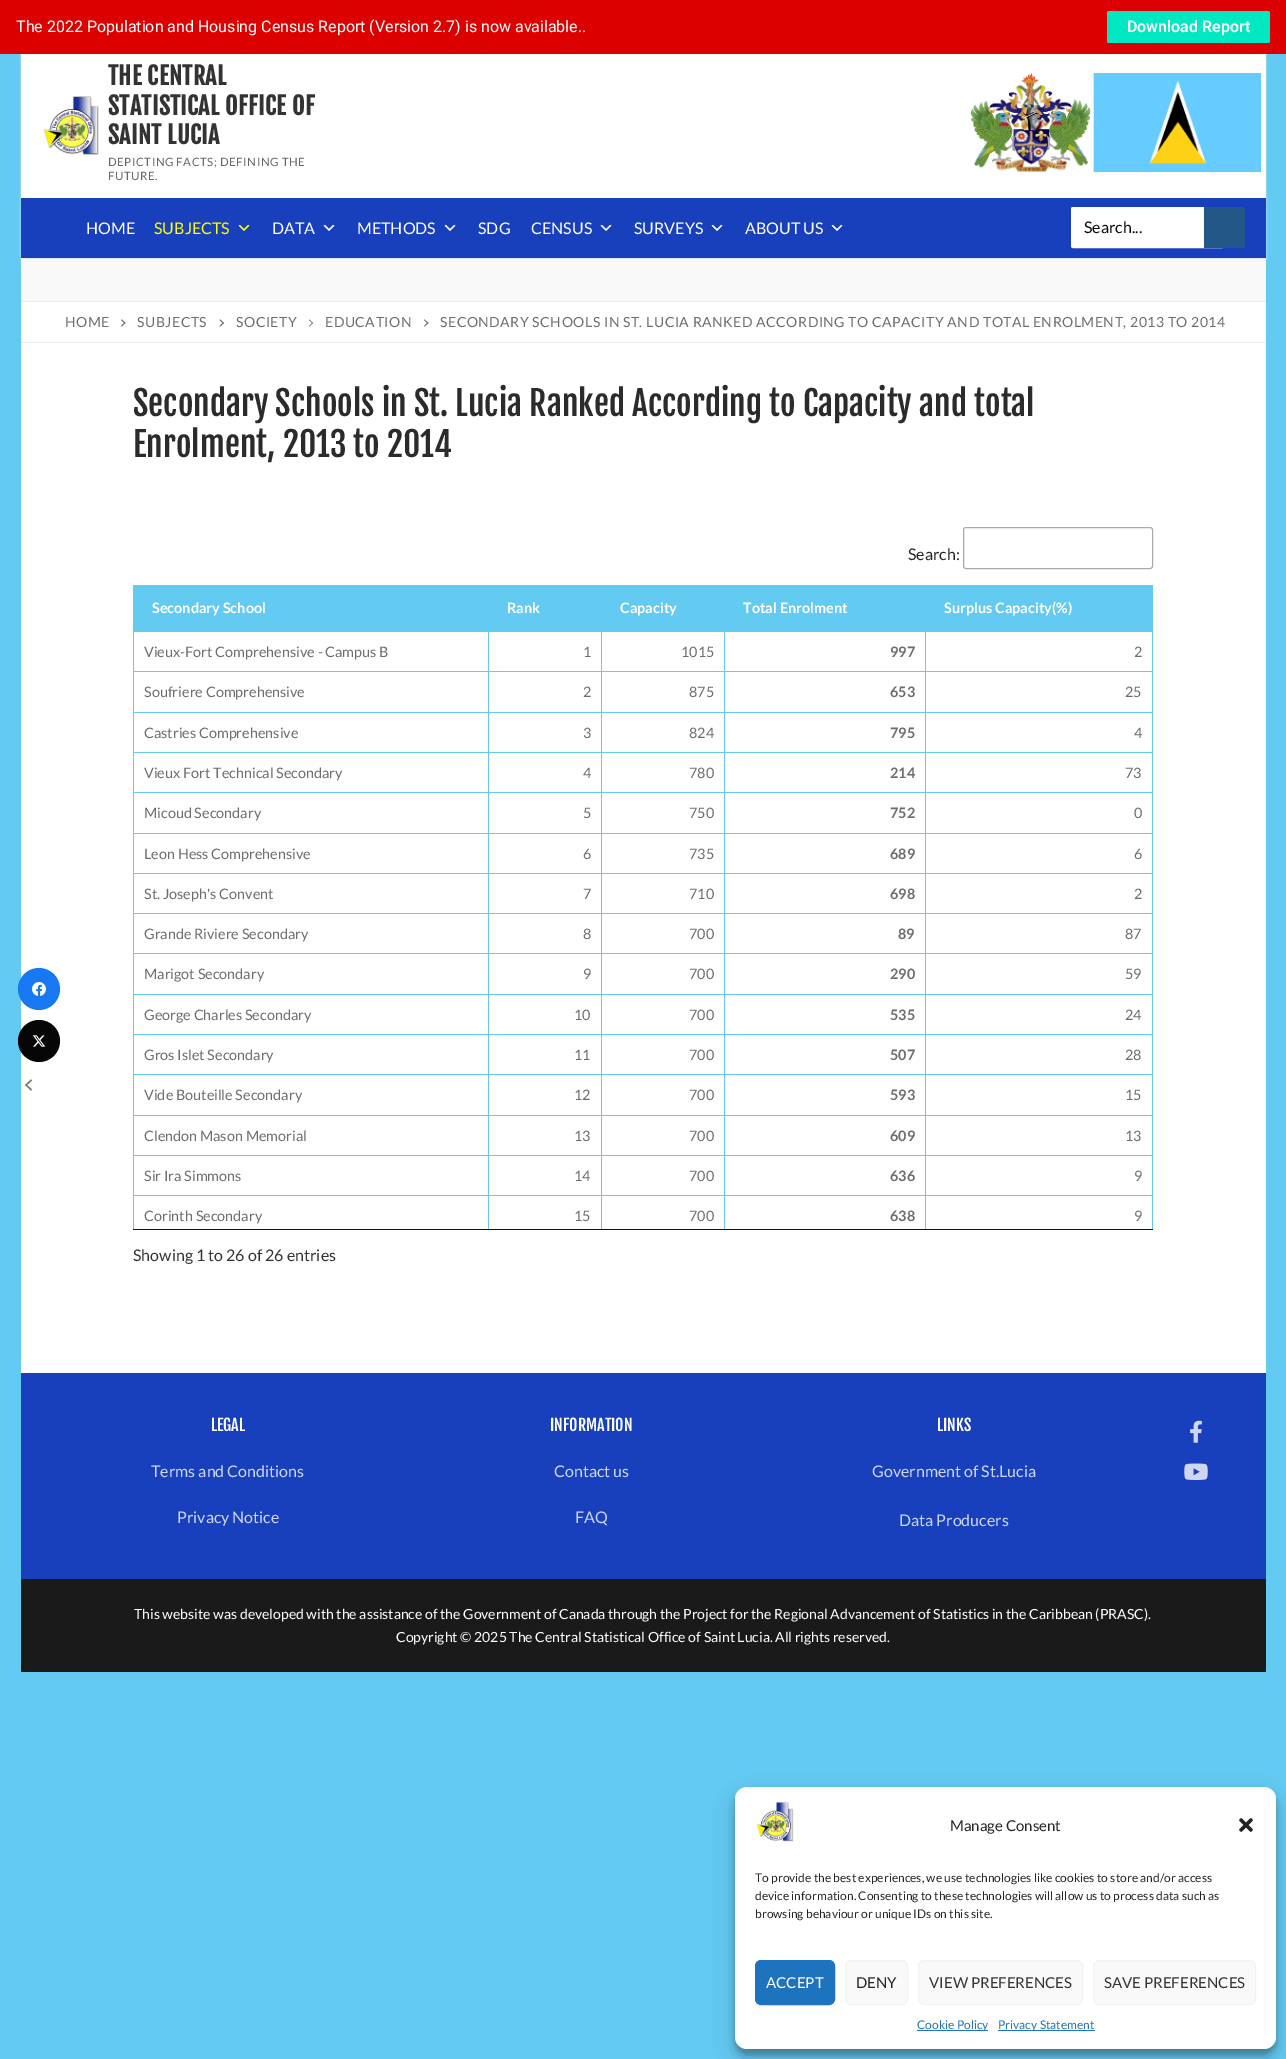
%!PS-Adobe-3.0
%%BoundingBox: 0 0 1286 2059
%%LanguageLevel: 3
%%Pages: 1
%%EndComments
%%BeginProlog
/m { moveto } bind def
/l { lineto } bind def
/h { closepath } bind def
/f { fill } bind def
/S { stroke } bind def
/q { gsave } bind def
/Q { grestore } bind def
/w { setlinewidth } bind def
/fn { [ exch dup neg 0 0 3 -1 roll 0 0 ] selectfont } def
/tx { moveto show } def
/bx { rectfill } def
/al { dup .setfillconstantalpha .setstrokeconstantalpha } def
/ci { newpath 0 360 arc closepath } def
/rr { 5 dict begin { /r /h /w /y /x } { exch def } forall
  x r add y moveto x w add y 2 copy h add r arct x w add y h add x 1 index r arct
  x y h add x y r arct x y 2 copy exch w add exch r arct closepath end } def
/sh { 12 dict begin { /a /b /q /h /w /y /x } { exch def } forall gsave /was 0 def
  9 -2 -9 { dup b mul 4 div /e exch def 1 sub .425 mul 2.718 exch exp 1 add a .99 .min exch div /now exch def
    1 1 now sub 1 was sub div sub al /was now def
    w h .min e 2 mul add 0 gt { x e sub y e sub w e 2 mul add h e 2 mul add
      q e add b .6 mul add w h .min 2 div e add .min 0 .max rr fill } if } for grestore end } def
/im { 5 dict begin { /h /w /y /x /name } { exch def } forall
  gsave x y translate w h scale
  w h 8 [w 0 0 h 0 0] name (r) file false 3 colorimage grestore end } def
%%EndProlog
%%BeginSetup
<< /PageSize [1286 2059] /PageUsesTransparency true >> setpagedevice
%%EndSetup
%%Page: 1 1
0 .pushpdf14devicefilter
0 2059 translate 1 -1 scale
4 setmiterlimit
0.388 0.792 0.949 setrgbcolor
0 0 1286 2059 bx
0.882 0.898 0.918 setrgbcolor
21 55 1245 144 0 1 1 sh
0.867 0 0 setrgbcolor
0 0 1286 54 bx
/Roboto-Regular 16 fn
1 setgray
(The 2022 Population and Housing Census Report \(Version 2.7\) is now available..) 16 32 tx
0 0.91 0.757 setrgbcolor
1107 11 163 32 2 rr f
/Roboto-SemiBold 16 fn
1 setgray
(Download Report) 1127 32 tx
21 343 1245 1030 bx
0.094 0.467 0.949 setrgbcolor
39 989 21 ci f
(image0.raw) 32 982 14 14 im
0.024 setgray
39 1041 21 ci f
(image1.raw) 32 1035 14 12 im
0.482 setgray
1.5 w
31.5 1080 m 26 1085 l 31.5 1090 l S
1 setgray
21 54 1245 144 bx
(image2.raw) 43 96 56 59 im
/FjallaOne-Bold 24 fn
0.2 setgray
108 85 m 0.4 0 (THE CENTRAL) ashow
108 115 m 0.4 0 (STATISTICAL OFFICE OF) ashow
108 144 m 0.4 0 (SAINT LUCIA) ashow
/Lato-Regular 11.5 fn
0.4 setgray
108 166 m 0.5 0 (DEPICTING FACTS; DEFINING THE) ashow
108 180 m 0.5 0 (FUTURE.) ashow
(image3.raw) 971 73 290 99 im
0.976 setgray
21 258 1245 43 bx
0.882 0.898 0.918 setrgbcolor
21 199 1245 60 0 1 1 sh
0.094 0.247 0.737 setrgbcolor
21 198 1245 60 bx
/Lato-Regular 16 fn
1 setgray
(HOME) 86 234 tx
1 1 0 setrgbcolor
(SUBJECTS) 154 234 tx
(image4.raw) 238 224 12 7 im
1 setgray
(DATA) 272 234 tx
(image5.raw) 323 224 12 7 im
(METHODS) 357 234 tx
(image5.raw) 444 224 12 7 im
(SDG) 478 234 tx
(CENSUS) 531 234 tx
(image5.raw) 600 224 12 7 im
(SURVEYS) 634 234 tx
(image5.raw) 711 224 12 7 im
(ABOUT US) 745 234 tx
(image5.raw) 831 224 12 7 im
1071.5 207.5 152 40 1.5 rr q f Q
1 w
S
0.039 setgray
(Search...) 1084 233 tx
0.137 0.341 0.529 setrgbcolor
1204 207 41 41 1 rr f
0.918 0.925 0.933 setrgbcolor
21 301 1245 1 bx
1 setgray
21 302 1245 40 bx
0.918 0.925 0.933 setrgbcolor
21 342 1245 1 bx
/Lato-Regular 14 fn
0.427 setgray
65 327 m 0.5 0 (HOME) ashow
125.5 323 m 122 326.5 l 121 326 l 124.5 322.5 l h f
125.5 323 m 124.5 323.5 l 121 320 l 122 319.5 l h f
137 327 m 0.5 0 (SUBJECTS) ashow
224 323 m 220.5 326.5 l 219.5 326 l 223 322.5 l h f
224 323 m 223 323.5 l 219.5 320 l 220.5 319.5 l h f
236 327 m 0.5 0 (SOCIETY) ashow
313 323 m 309.5 326.5 l 309 326 l 312.5 322.5 l h f
313 323 m 312.5 323.5 l 309 320 l 309.5 319.5 l h f
325 327 m 0.5 0 (EDUCATION) ashow
428.5 323 m 424.5 326.5 l 424 326 l 427.5 322.5 l h f
428.5 323 m 427.5 323.5 l 424 320 l 424.5 319.5 l h f
440 327 m 0.5 0 (SECONDARY SCHOOLS IN ST. LUCIA RANKED ACCORDING TO CAPACITY AND TOTAL ENROLMENT, 2013 TO 2014) ashow
/FjallaOne-Regular 33.6 fn
0.169 setgray
(Secondary Schools in St. Lucia Ranked According to Capacity and total) 133 416 tx
(Enrolment, 2013 to 2014) 133 457 tx
/Lato-Regular 16 fn
0.145 setgray
(Search:) 908 560 tx
0.667 setgray
963.5 527.5 189 41 2.5 rr S
0.388 0.792 0.949 setrgbcolor
134 586 354 43 bx
488 585 665 45 bx
133 585 356 1 bx
133 629 356 1 bx
133 585 1 45 bx
/Lato-Bold 14.4 fn
1 setgray
(Secondary School) 152 613 tx
(Rank) 507 613 tx
(Capacity) 620 613 tx
(Total Enrolment) 743 613 tx
(Surplus Capacity\(%\)) 944 613 tx
0.067 setgray
133 1229 1020 1 bx
0.388 0.792 0.949 setrgbcolor
133 630 1020 1 bx
134 631 1019 1 bx
1152 630 1 599 bx
133 630 1 599 bx
/Lato-Regular 14.4 fn
0.427 setgray
(Vieux-Fort Comprehensive - Campus B) 144 657 tx
0.388 0.792 0.949 setrgbcolor
925 671 228 1 bx
925 712 228 1 bx
925 752 228 1 bx
925 792 228 1 bx
925 833 228 1 bx
925 873 228 1 bx
925 913 228 1 bx
925 953 228 1 bx
925 994 228 1 bx
925 1034 228 1 bx
925 1074 228 1 bx
925 1115 228 1 bx
925 1155 228 1 bx
925 1195 228 1 bx
925 1195 1 34 bx
724 1195 202 1 bx
925 1155 1 41 bx
724 1155 202 1 bx
925 1115 1 41 bx
724 1115 202 1 bx
925 1074 1 42 bx
724 1074 202 1 bx
925 1034 1 41 bx
724 1034 202 1 bx
925 994 1 41 bx
724 994 202 1 bx
925 953 1 42 bx
724 953 202 1 bx
925 913 1 41 bx
724 913 202 1 bx
925 873 1 41 bx
724 873 202 1 bx
925 833 1 41 bx
724 833 202 1 bx
925 792 1 42 bx
724 792 202 1 bx
925 752 1 41 bx
724 752 202 1 bx
925 712 1 41 bx
724 712 202 1 bx
925 671 1 42 bx
724 671 202 1 bx
724 1195 1 34 bx
601 1195 124 1 bx
724 1155 1 41 bx
601 1155 124 1 bx
724 1115 1 41 bx
601 1115 124 1 bx
724 1074 1 42 bx
601 1074 124 1 bx
724 1034 1 41 bx
601 1034 124 1 bx
724 994 1 41 bx
601 994 124 1 bx
724 953 1 42 bx
601 953 124 1 bx
724 913 1 41 bx
601 913 124 1 bx
724 873 1 41 bx
601 873 124 1 bx
724 833 1 41 bx
601 833 124 1 bx
724 792 1 42 bx
601 792 124 1 bx
724 752 1 41 bx
601 752 124 1 bx
724 712 1 41 bx
601 712 124 1 bx
724 671 1 42 bx
601 671 124 1 bx
601 1195 1 34 bx
488 1195 114 1 bx
601 1155 1 41 bx
488 1155 114 1 bx
601 1115 1 41 bx
488 1115 114 1 bx
601 1074 1 42 bx
488 1074 114 1 bx
601 1034 1 41 bx
488 1034 114 1 bx
601 994 1 41 bx
488 994 114 1 bx
601 953 1 42 bx
488 953 114 1 bx
601 913 1 41 bx
488 913 114 1 bx
601 873 1 41 bx
488 873 114 1 bx
601 833 1 41 bx
488 833 114 1 bx
601 792 1 42 bx
488 792 114 1 bx
601 752 1 41 bx
488 752 114 1 bx
601 712 1 41 bx
488 712 114 1 bx
601 671 1 42 bx
488 671 114 1 bx
488 1195 1 34 bx
133 1195 356 1 bx
488 1155 1 41 bx
133 1155 356 1 bx
488 1115 1 41 bx
133 1115 356 1 bx
488 1074 1 42 bx
133 1074 356 1 bx
488 1034 1 41 bx
133 1034 356 1 bx
488 994 1 41 bx
133 994 356 1 bx
488 953 1 42 bx
133 953 356 1 bx
488 913 1 41 bx
133 913 356 1 bx
488 873 1 41 bx
133 873 356 1 bx
488 833 1 41 bx
133 833 356 1 bx
488 792 1 42 bx
133 792 356 1 bx
488 752 1 41 bx
133 752 356 1 bx
488 712 1 41 bx
133 712 356 1 bx
488 671 1 42 bx
133 671 356 1 bx
488 631 1 41 bx
0.427 setgray
(1) 583 657 tx
0.388 0.792 0.949 setrgbcolor
601 631 1 41 bx
0.427 setgray
(1015) 681 657 tx
0.388 0.792 0.949 setrgbcolor
724 631 1 41 bx
/Lato-Bold 14.4 fn
0.427 setgray
(997) 890 657 tx
0.388 0.792 0.949 setrgbcolor
925 631 1 41 bx
/Lato-Regular 14.4 fn
0.427 setgray
(2) 1134 657 tx
(Soufriere Comprehensive) 144 697 tx
(2) 583 697 tx
(875) 689 697 tx
/Lato-Bold 14.4 fn
(653) 890 697 tx
/Lato-Regular 14.4 fn
(25) 1125 697 tx
(Castries Comprehensive) 144 738 tx
(3) 583 738 tx
(824) 689 738 tx
/Lato-Bold 14.4 fn
(795) 890 738 tx
/Lato-Regular 14.4 fn
(4) 1134 738 tx
(Vieux Fort Technical Secondary) 144 778 tx
(4) 583 778 tx
(780) 689 778 tx
/Lato-Bold 14.4 fn
(214) 890 778 tx
/Lato-Regular 14.4 fn
(73) 1125 778 tx
(Micoud Secondary) 144 818 tx
(5) 583 818 tx
(750) 689 818 tx
/Lato-Bold 14.4 fn
(752) 890 818 tx
/Lato-Regular 14.4 fn
(0) 1134 818 tx
(Leon Hess Comprehensive) 144 859 tx
(6) 583 859 tx
(735) 689 859 tx
/Lato-Bold 14.4 fn
(689) 890 859 tx
/Lato-Regular 14.4 fn
(6) 1134 859 tx
(St. Joseph's Convent) 144 899 tx
(7) 583 899 tx
(710) 689 899 tx
/Lato-Bold 14.4 fn
(698) 890 899 tx
/Lato-Regular 14.4 fn
(2) 1134 899 tx
(Grande Riviere Secondary) 144 939 tx
(8) 583 939 tx
(700) 689 939 tx
/Lato-Bold 14.4 fn
(89) 898 939 tx
/Lato-Regular 14.4 fn
(87) 1125 939 tx
(Marigot Secondary) 144 979 tx
(9) 583 979 tx
(700) 689 979 tx
/Lato-Bold 14.4 fn
(290) 890 979 tx
/Lato-Regular 14.4 fn
(59) 1125 979 tx
(George Charles Secondary) 144 1020 tx
(10) 574 1020 tx
(700) 689 1020 tx
/Lato-Bold 14.4 fn
(535) 890 1020 tx
/Lato-Regular 14.4 fn
(24) 1125 1020 tx
(Gros Islet Secondary) 144 1060 tx
(11) 574 1060 tx
(700) 689 1060 tx
/Lato-Bold 14.4 fn
(507) 890 1060 tx
/Lato-Regular 14.4 fn
(28) 1125 1060 tx
(Vide Bouteille Secondary) 144 1100 tx
(12) 574 1100 tx
(700) 689 1100 tx
/Lato-Bold 14.4 fn
(593) 890 1100 tx
/Lato-Regular 14.4 fn
(15) 1125 1100 tx
(Clendon Mason Memorial) 144 1141 tx
(13) 574 1141 tx
(700) 689 1141 tx
/Lato-Bold 14.4 fn
(609) 890 1141 tx
/Lato-Regular 14.4 fn
(13) 1125 1141 tx
(Sir Ira Simmons) 144 1181 tx
(14) 574 1181 tx
(700) 689 1181 tx
/Lato-Bold 14.4 fn
(636) 890 1181 tx
/Lato-Regular 14.4 fn
(9) 1134 1181 tx
(Corinth Secondary) 144 1221 tx
(15) 574 1221 tx
(700) 689 1221 tx
/Lato-Bold 14.4 fn
(638) 890 1221 tx
/Lato-Regular 14.4 fn
(9) 1134 1221 tx
/Lato-Regular 16 fn
0.2 setgray
(Showing 1 to 26 of 26 entries) 133 1261 tx
0.094 0.247 0.737 setrgbcolor
21 1373 1245 206 bx
/FjallaOne-Regular 16 fn
1 setgray
(LEGAL) 211 1431 tx
/Lato-Regular 16 fn
0.808 0.843 0.945 setrgbcolor
(Terms and Conditions) 151 1477 tx
(Privacy Notice) 177 1523 tx
/FjallaOne-Regular 16 fn
1 setgray
(INFORMATION) 550 1431 tx
/Lato-Regular 16 fn
0.808 0.843 0.945 setrgbcolor
(Contact us) 554 1477 tx
(FAQ) 575 1523 tx
/FjallaOne-Regular 16 fn
1 setgray
(LINKS) 937 1431 tx
/Lato-Regular 16 fn
0.808 0.843 0.945 setrgbcolor
(Government of St.Lucia) 872 1477 tx
(Data Producers) 899 1526 tx
(image6.raw) 1190 1420 12 23 im
(image7.raw) 1184 1463 24 17 im
0.102 setgray
21 1579 1245 93 bx
/Lato-Regular 14 fn
1 setgray
(This website was developed with the assistance of the Government of Canada through the Project for the Regional Advancement of Statistics in the Caribbean \(PRASC\).) 134 1619 tx
(Copyright © 2025 The Central Statistical Office of Saint Lucia. All rights reserved.) 396 1642 tx
0 setgray
735 1793 541 262 12 3 0.23 sh
735 1797 541 262 12 10 0.19 sh
1 setgray
735 1787 541 262 12 rr f
(image8.raw) 757 1801 37 41 im
/Lato-Regular 15 fn
0.145 setgray
(Manage Consent) 950 1831 tx
(image9.raw) 1239 1818 14 14 im
/Lato-Regular 12 fn
(To provide the best experiences, we use technologies like cookies to store and/or access) 755 1882 tx
(device information. Consenting to these technologies will allow us to process data such as) 755 1900 tx
(browsing behaviour or unique IDs on this site.) 755 1918 tx
0.118 0.451 0.745 setrgbcolor
755.5 1960.5 79 44 5.5 rr q f Q
S
/Lato-Regular 15 fn
1 setgray
(ACCEPT) 766 1988 tx
0.976 setgray
845.5 1960.5 62 44 5.5 rr q f Q
0.949 setgray
S
0.145 setgray
(DENY) 856 1988 tx
0.976 setgray
918.5 1960.5 164 44 5.5 rr q f Q
0.949 setgray
S
0.2 setgray
(VIEW PREFERENCES) 929 1988 tx
0.976 setgray
1093.5 1960.5 162 44 5.5 rr q f Q
0.949 setgray
S
0.2 setgray
(SAVE PREFERENCES) 1104 1988 tx
0.118 0.451 0.745 setrgbcolor
917 2030 71 1 bx
/Lato-Regular 12 fn
(Cookie Policy) 917 2029 tx
998 2030 97 1 bx
(Privacy Statement) 998 2029 tx
.poppdf14devicefilter showpage
%%EOF
